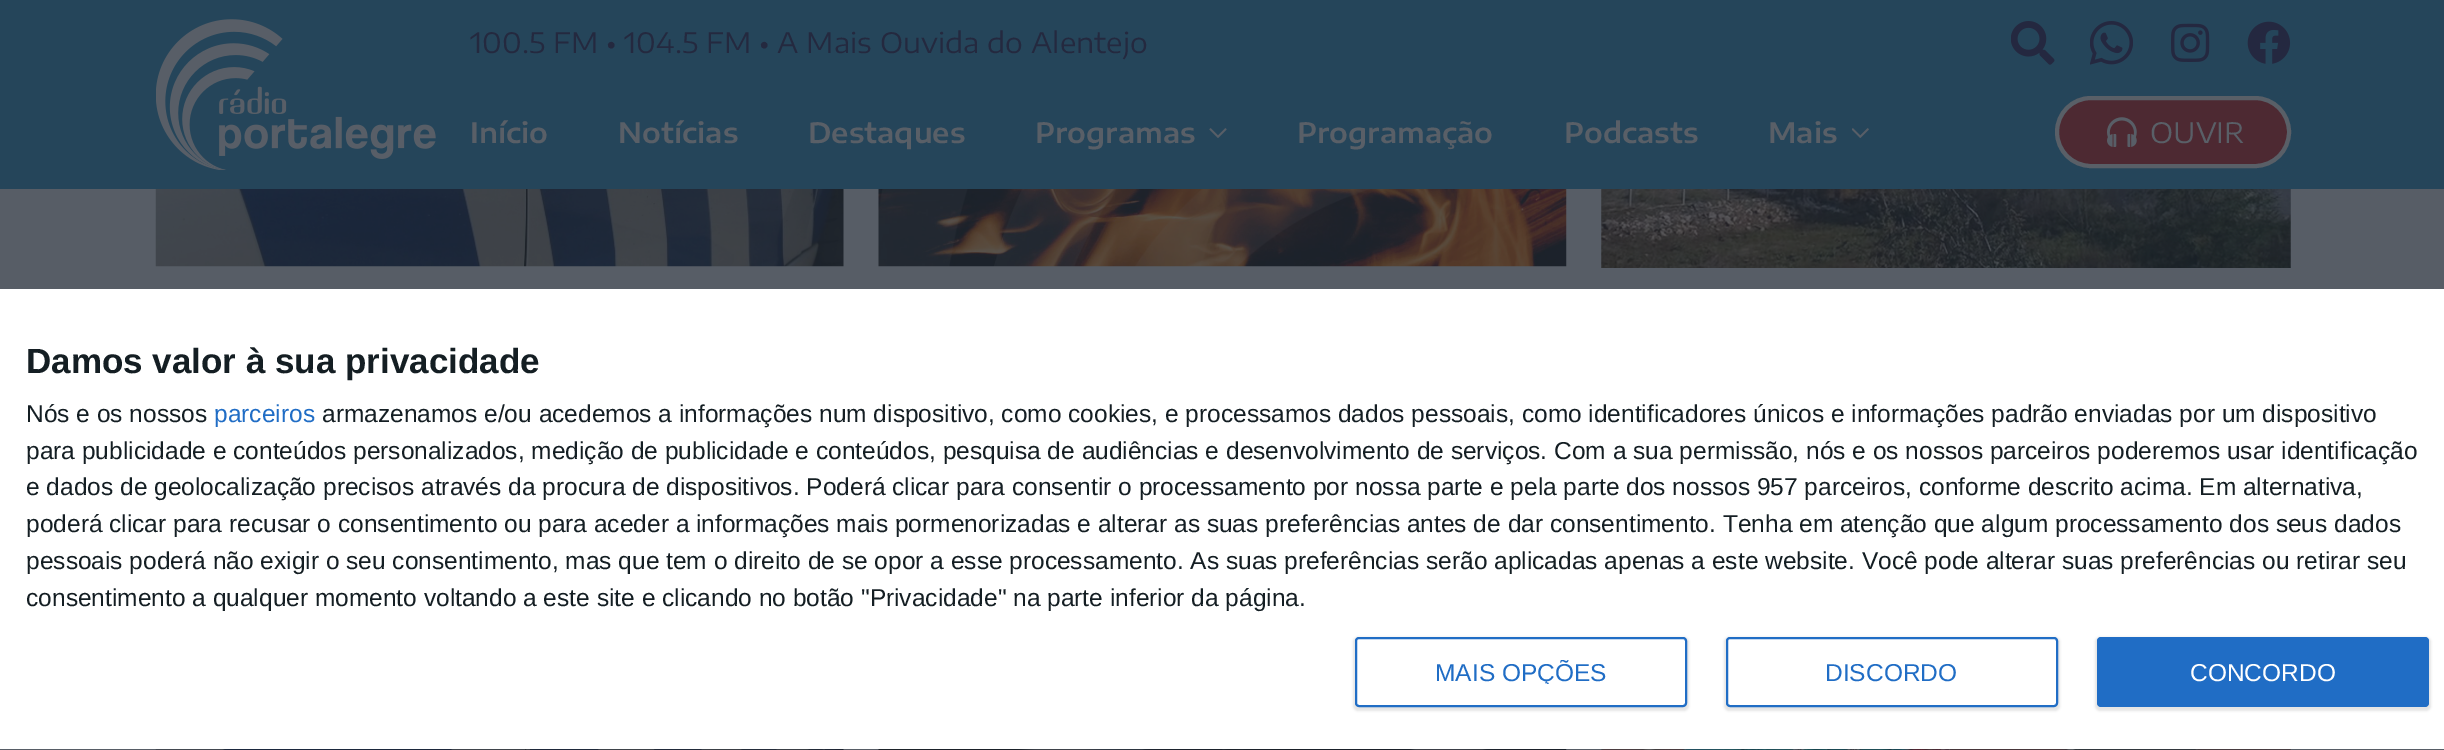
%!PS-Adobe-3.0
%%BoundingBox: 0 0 2444 750
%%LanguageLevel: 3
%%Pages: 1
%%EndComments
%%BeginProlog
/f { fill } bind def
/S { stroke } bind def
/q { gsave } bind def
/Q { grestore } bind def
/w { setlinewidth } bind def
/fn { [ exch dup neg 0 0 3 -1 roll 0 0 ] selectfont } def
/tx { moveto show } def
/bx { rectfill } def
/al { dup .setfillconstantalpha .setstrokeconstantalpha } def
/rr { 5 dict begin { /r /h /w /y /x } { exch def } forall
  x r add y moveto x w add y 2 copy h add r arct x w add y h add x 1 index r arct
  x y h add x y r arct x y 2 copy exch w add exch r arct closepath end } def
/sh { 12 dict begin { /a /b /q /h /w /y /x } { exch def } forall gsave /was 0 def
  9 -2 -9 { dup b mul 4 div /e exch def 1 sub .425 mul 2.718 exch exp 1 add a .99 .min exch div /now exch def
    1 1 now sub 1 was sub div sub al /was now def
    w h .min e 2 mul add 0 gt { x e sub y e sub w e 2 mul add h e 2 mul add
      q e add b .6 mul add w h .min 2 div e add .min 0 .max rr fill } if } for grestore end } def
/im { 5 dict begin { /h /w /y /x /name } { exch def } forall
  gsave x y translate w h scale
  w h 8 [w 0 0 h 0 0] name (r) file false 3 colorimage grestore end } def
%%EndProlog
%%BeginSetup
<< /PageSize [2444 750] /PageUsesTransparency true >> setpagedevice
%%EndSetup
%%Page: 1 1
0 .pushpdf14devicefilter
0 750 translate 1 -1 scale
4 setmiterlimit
0.341 0.365 0.4 setrgbcolor
0 0 2444 750 bx
0.145 0.271 0.353 setrgbcolor
0 0 2444 189 bx
(image0.raw) 156 19 280 151 im
/EncodeSansExpanded-Regular 28 fn
0.141 0.161 0.247 setrgbcolor
(100.5 FM • 104.5 FM • A Mais Ouvida do Alentejo) 470 53 tx
(image1.raw) 2011 21 44 44 im
(image2.raw) 2090 21 43 44 im
(image3.raw) 2171 23 39 39 im
(image4.raw) 2247 21 44 43 im
/EncodeSansExpanded-SemiBold 28 fn
0.349 0.373 0.404 setrgbcolor
(Início) 470 143 tx
(Notícias) 618 143 tx
(Destaques) 808 143 tx
(Programas) 1035 143 tx
(image5.raw) 1209 128 18 10 im
(Programação) 1297 143 tx
(Podcasts) 1564 143 tx
(Mais) 1768 143 tx
(image6.raw) 1852 128 17 10 im
0.302 0.161 0.196 setrgbcolor
2057 98 232 68 34 rr q f Q
0.349 0.373 0.404 setrgbcolor
4 w
S
(image7.raw) 2107 117 30 30 im
/EncodeSansExpanded-Regular 28 fn
(OUVIR) 2150 143 tx
(image8.raw) 155 189 689 78 im
(image9.raw) 878 189 689 78 im
(image10.raw) 1601 189 690 79 im
(image11.raw) 155 749 689 1 im
(image12.raw) 878 749 689 1 im
(image13.raw) 1601 749 690 1 im
1 setgray
0 289 2444 460 bx
/LiberationSans-Bold 35 fn
0.078 0.118 0.137 setrgbcolor
(Damos valor à sua privacidade) 26 373 tx
/LiberationSans-Regular 24.5 fn
(Nós e os nossos) 26 422 tx
0.125 0.427 0.773 setrgbcolor
(parceiros) 214 422 tx
0.078 0.118 0.137 setrgbcolor
(armazenamos e/ou acedemos a informações num dispositivo, como cookies, e processamos dados pessoais, como identificadores únicos e informações padrão enviadas por um dispositivo) 322 422 tx
(para publicidade e conteúdos personalizados, medição de publicidade e conteúdos, pesquisa de audiências e desenvolvimento de serviços. Com a sua permissão, nós e os nossos parceiros poderemos usar identificação) 26 459 tx
(e dados de geolocalização precisos através da procura de dispositivos. Poderá clicar para consentir o processamento por nossa parte e pela parte dos nossos 957 parceiros, conforme descrito acima. Em alternativa,) 26 495 tx
(poderá clicar para recusar o consentimento ou para aceder a informações mais pormenorizadas e alterar as suas preferências antes de dar consentimento. Tenha em atenção que algum processamento dos seus dados) 26 532 tx
(pessoais poderá não exigir o seu consentimento, mas que tem o direito de se opor a esse processamento. As suas preferências serão aplicadas apenas a este website. Você pode alterar suas preferências ou retirar seu) 26 569 tx
(consentimento a qualquer momento voltando a este site e clicando no botão "Privacidade" na parte inferior da página.) 26 606 tx
0 setgray
1353 637 336 74 5 1 0.1 sh
1 setgray
1356 638 330 68 3 rr q f Q
0.125 0.427 0.773 setrgbcolor
2 w
S
q
1435 660 172 24 rectclip
(MAIS OPÇÕES) 1435 681 tx
Q
0 setgray
1724 637 336 74 5 1 0.1 sh
1 setgray
1727 638 330 68 3 rr q f Q
0.125 0.427 0.773 setrgbcolor
S
(DISCORDO) 1825 681 tx
0 setgray
2095 637 336 74 5 1 0.1 sh
0.125 0.427 0.773 setrgbcolor
2097 637 332 70 4 rr f
1 setgray
(CONCORDO) 2190 681 tx
.poppdf14devicefilter showpage
%%EOF
